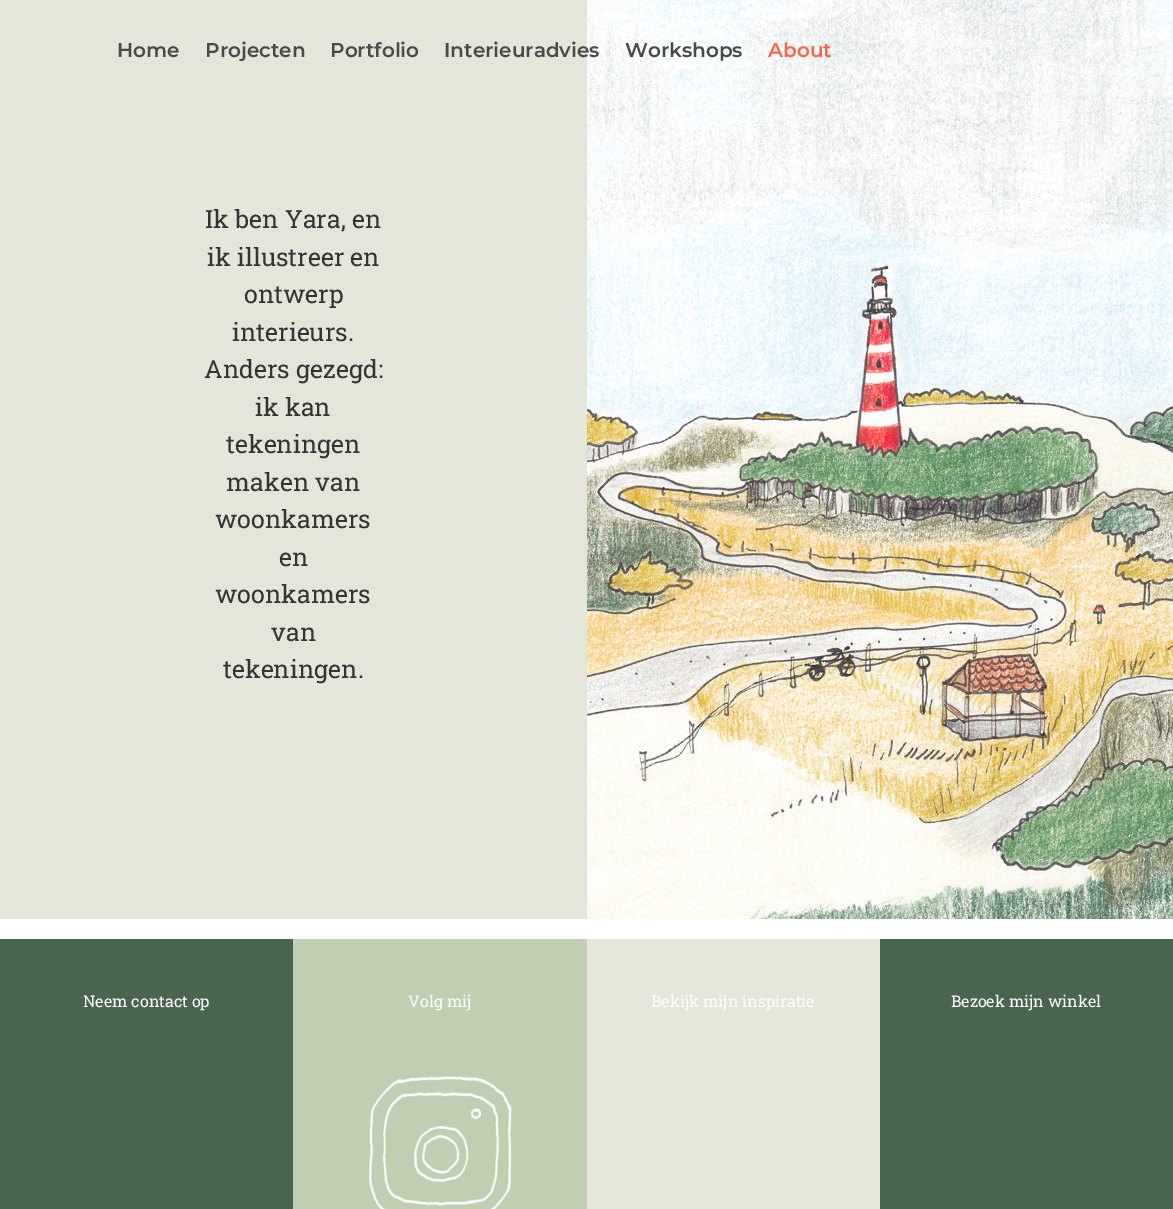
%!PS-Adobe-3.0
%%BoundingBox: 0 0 1173 1209
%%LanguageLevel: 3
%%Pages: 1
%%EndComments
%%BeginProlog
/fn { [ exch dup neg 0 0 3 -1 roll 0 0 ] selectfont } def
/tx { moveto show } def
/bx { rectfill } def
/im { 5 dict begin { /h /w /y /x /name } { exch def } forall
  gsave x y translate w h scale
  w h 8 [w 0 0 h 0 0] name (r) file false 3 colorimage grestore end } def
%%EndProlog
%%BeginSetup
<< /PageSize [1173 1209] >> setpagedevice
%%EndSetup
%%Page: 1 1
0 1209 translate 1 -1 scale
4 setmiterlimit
1 setgray
0 0 1173 1209 bx
0.894 0.902 0.851 setrgbcolor
0 0 587 919 bx
/Montserrat-SemiBold 20 fn
0.286 setgray
(Home) 117 57 tx
(Projecten) 205 57 tx
(Portfolio) 330 57 tx
(image0.raw) 587 0 586 919 im
(Interieuradvies) 444 57 tx
(Workshops) 625 57 tx
0.949 0.4 0.29 setrgbcolor
(About) 768 57 tx
/RobotoSlab-Regular 25 fn
0.204 setgray
(Ik ben Yara, en) 205 228 tx
(ik illustreer en) 207 266 tx
(ontwerp) 244 303 tx
(interieurs.) 232 341 tx
(Anders gezegd:) 204 378 tx
(ik kan) 255 416 tx
(tekeningen) 226 453 tx
(maken van) 226 491 tx
(woonkamers) 215 528 tx
(en) 279 566 tx
(woonkamers) 215 603 tx
(van) 271 641 tx
(tekeningen.) 223 678 tx
0.286 0.396 0.306 setrgbcolor
0 939 293 270 bx
/RobotoSlab-Regular 16 fn
1 setgray
(Neem contact op) 83 1007 tx
0.753 0.812 0.698 setrgbcolor
293 939 294 270 bx
1 setgray
(Volg mij) 408 1007 tx
(image1.raw) 369 1076 143 133 im
0.894 0.902 0.851 setrgbcolor
587 939 293 270 bx
1 setgray
(Bekijk mijn inspiratie) 651 1007 tx
0.286 0.396 0.306 setrgbcolor
880 939 293 270 bx
1 setgray
(Bezoek mijn winkel) 951 1007 tx
showpage
%%EOF
